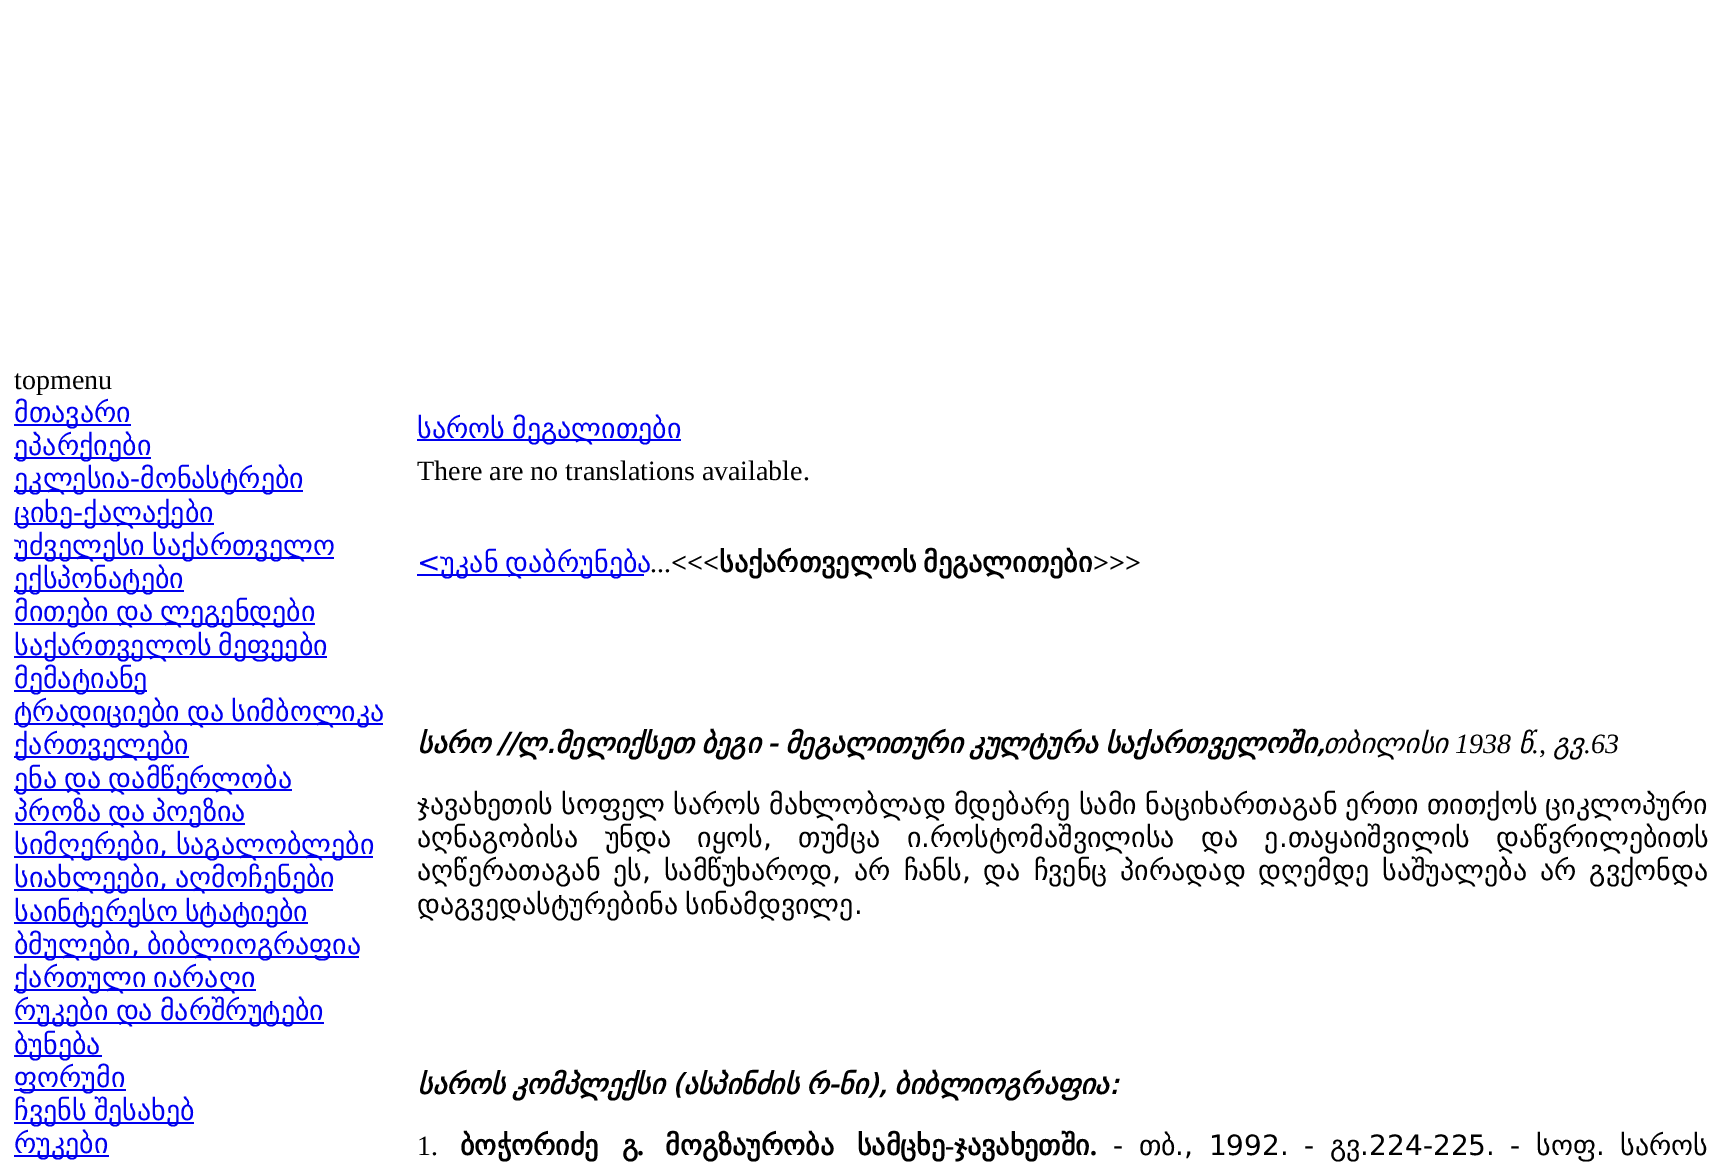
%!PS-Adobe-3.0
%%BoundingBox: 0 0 1736 1171
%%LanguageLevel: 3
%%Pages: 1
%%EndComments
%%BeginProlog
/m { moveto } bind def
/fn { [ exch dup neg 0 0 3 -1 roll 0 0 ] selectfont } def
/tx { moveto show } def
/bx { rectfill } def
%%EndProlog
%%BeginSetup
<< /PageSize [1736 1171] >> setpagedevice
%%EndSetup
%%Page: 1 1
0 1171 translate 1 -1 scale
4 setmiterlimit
1 setgray
0 0 1736 1171 bx
/LiberationSerif-Regular 28 fn
0 setgray
(topmenu) 14 389 tx
0 0 0.933 setrgbcolor
14 424 117 2 bx
/DejaVuSans-Regular 28 fn
(მთავარი) 14 422 tx
14 457 137 2 bx
(ეპარქიები) 14 455 tx
14 490 289 2 bx
(ეკლესია-მონასტრები) 14 488 tx
14 523 200 2 bx
(ციხე-ქალაქები) 14 522 tx
14 557 320 2 bx
14 555 m -1.75 0 32 (უძველესი საქართველო) widthshow
14 590 170 2 bx
(ექსპონატები) 14 588 tx
14 623 301 2 bx
14 621 m -1.75 0 32 (მითები და ლეგენდები) widthshow
14 656 313 2 bx
14 655 m -1.75 0 32 (საქართველოს მეფეები) widthshow
14 690 133 2 bx
(მემატიანე) 14 688 tx
14 723 369 2 bx
14 721 m -1.75 0 32 (ტრადიციები და სიმბოლიკა) widthshow
14 756 175 2 bx
(ქართველები) 14 754 tx
14 789 278 2 bx
14 788 m -1.75 0 32 (ენა და დამწერლობა) widthshow
14 823 231 2 bx
14 821 m -1.75 0 32 (პროზა და პოეზია) widthshow
14 856 359 2 bx
14 854 m -1.75 0 32 (სიმღერები, საგალობლები) widthshow
14 889 319 2 bx
14 887 m -1.75 0 32 (სიახლეები, აღმოჩენები) widthshow
14 922 294 2 bx
14 921 m -1.75 0 32 (საინტერესო სტატიები) widthshow
14 956 345 2 bx
14 954 m -1.75 0 32 (ბმულები, ბიბლიოგრაფია) widthshow
14 989 242 2 bx
14 987 m -1.75 0 32 (ქართული იარაღი) widthshow
14 1022 310 2 bx
14 1020 m -1.75 0 32 (რუკები და მარშრუტები) widthshow
14 1055 88 2 bx
(ბუნება) 14 1054 tx
14 1089 112 2 bx
(ფორუმი) 14 1087 tx
14 1122 180 2 bx
14 1120 m -1.75 0 32 (ჩვენს შესახებ) widthshow
14 1155 95 2 bx
(რუკები) 14 1153 tx
417 439 264 2 bx
417 438 m -1.75 0 32 (საროს მეგალითები) widthshow
/LiberationSerif-Regular 28 fn
0 setgray
(There are no translations available.) 417 480 tx
0 0 0.933 setrgbcolor
417 574 227 2 bx
/DejaVuSans-Regular 28 fn
417 572 m -1.75 0 32 (<უკან დაბრუნება) widthshow
/LiberationSerif-Bold 28 fn
0 setgray
(<<<) 671 572 tx
/DejaVuSans-Bold 28 fn
719 572 m -2 0 32 (საქართველოს მეგალითები) widthshow
/LiberationSerif-Bold 28 fn
(>>>) 1093 572 tx
/LiberationSerif-Regular 28 fn
(...) 650 572 tx
/DejaVuSans-BoldItalic 28 fn
417 753 m -1.75 0 32 (სარო //ლ.მელიქსეთ ბეგი - მეგალითური კულტურა საქართველოში,) widthshow
/DejaVuSans-Italic 28 fn
(თბილისი) 1323 753 tx
/LiberationSerif-Italic 28 fn
(1938) 1455 753 tx
/DejaVuSans-Italic 28 fn
(წ) 1518 753 tx
/LiberationSerif-Italic 28 fn
(.,) 1532 753 tx
/DejaVuSans-Italic 28 fn
(გვ) 1553 753 tx
/LiberationSerif-Italic 28 fn
(.63) 1584 753 tx
/DejaVuSans-Regular 28 fn
417 814 m -0.75 0 32 (ჯავახეთის სოფელ საროს მახლობლად მდებარე სამი ნაციხართაგან ერთი თითქოს ციკლოპური) widthshow
417 847 m 17.5 0 32 (აღნაგობისა უნდა იყოს, თუმცა ი.როსტომაშვილისა და ე.თაყაიშვილის დაწვრილებითს) widthshow
417 880 m 4 0 32 (აღწერათაგან ეს, სამწუხაროდ, არ ჩანს, და ჩვენც პირადად დღემდე საშუალება არ გვქონდა) widthshow
417 914 m -1.75 0 32 (დაგვედასტურებინა სინამდვილე.) widthshow
/DejaVuSans-BoldItalic 28 fn
417 1094 m -1.75 0 32 (საროს კომპლექსი \(ასპინძის რ-ნი\), ბიბლიოგრაფია:) widthshow
/LiberationSerif-Regular 28 fn
(1.) 417 1155 tx
/DejaVuSans-Bold 28 fn
460 1155 m 14 0 32 (ბოჭორიძე გ) widthshow
665 1155 m 14 0 32 (მოგზაურობა სამცხე) widthshow
/LiberationSerif-Bold 28 fn
(-) 945 1155 tx
/DejaVuSans-Bold 28 fn
(ჯავახეთში) 954 1155 tx
/DejaVuSans-Regular 28 fn
1113 1155 m 6.5 0 32 (- თბ., 1992. - გვ.224-225. - სოფ. საროს) widthshow
/LiberationSerif-Bold 28 fn
(.) 637 1155 tx
(.) 1090 1155 tx
showpage
%%EOF
